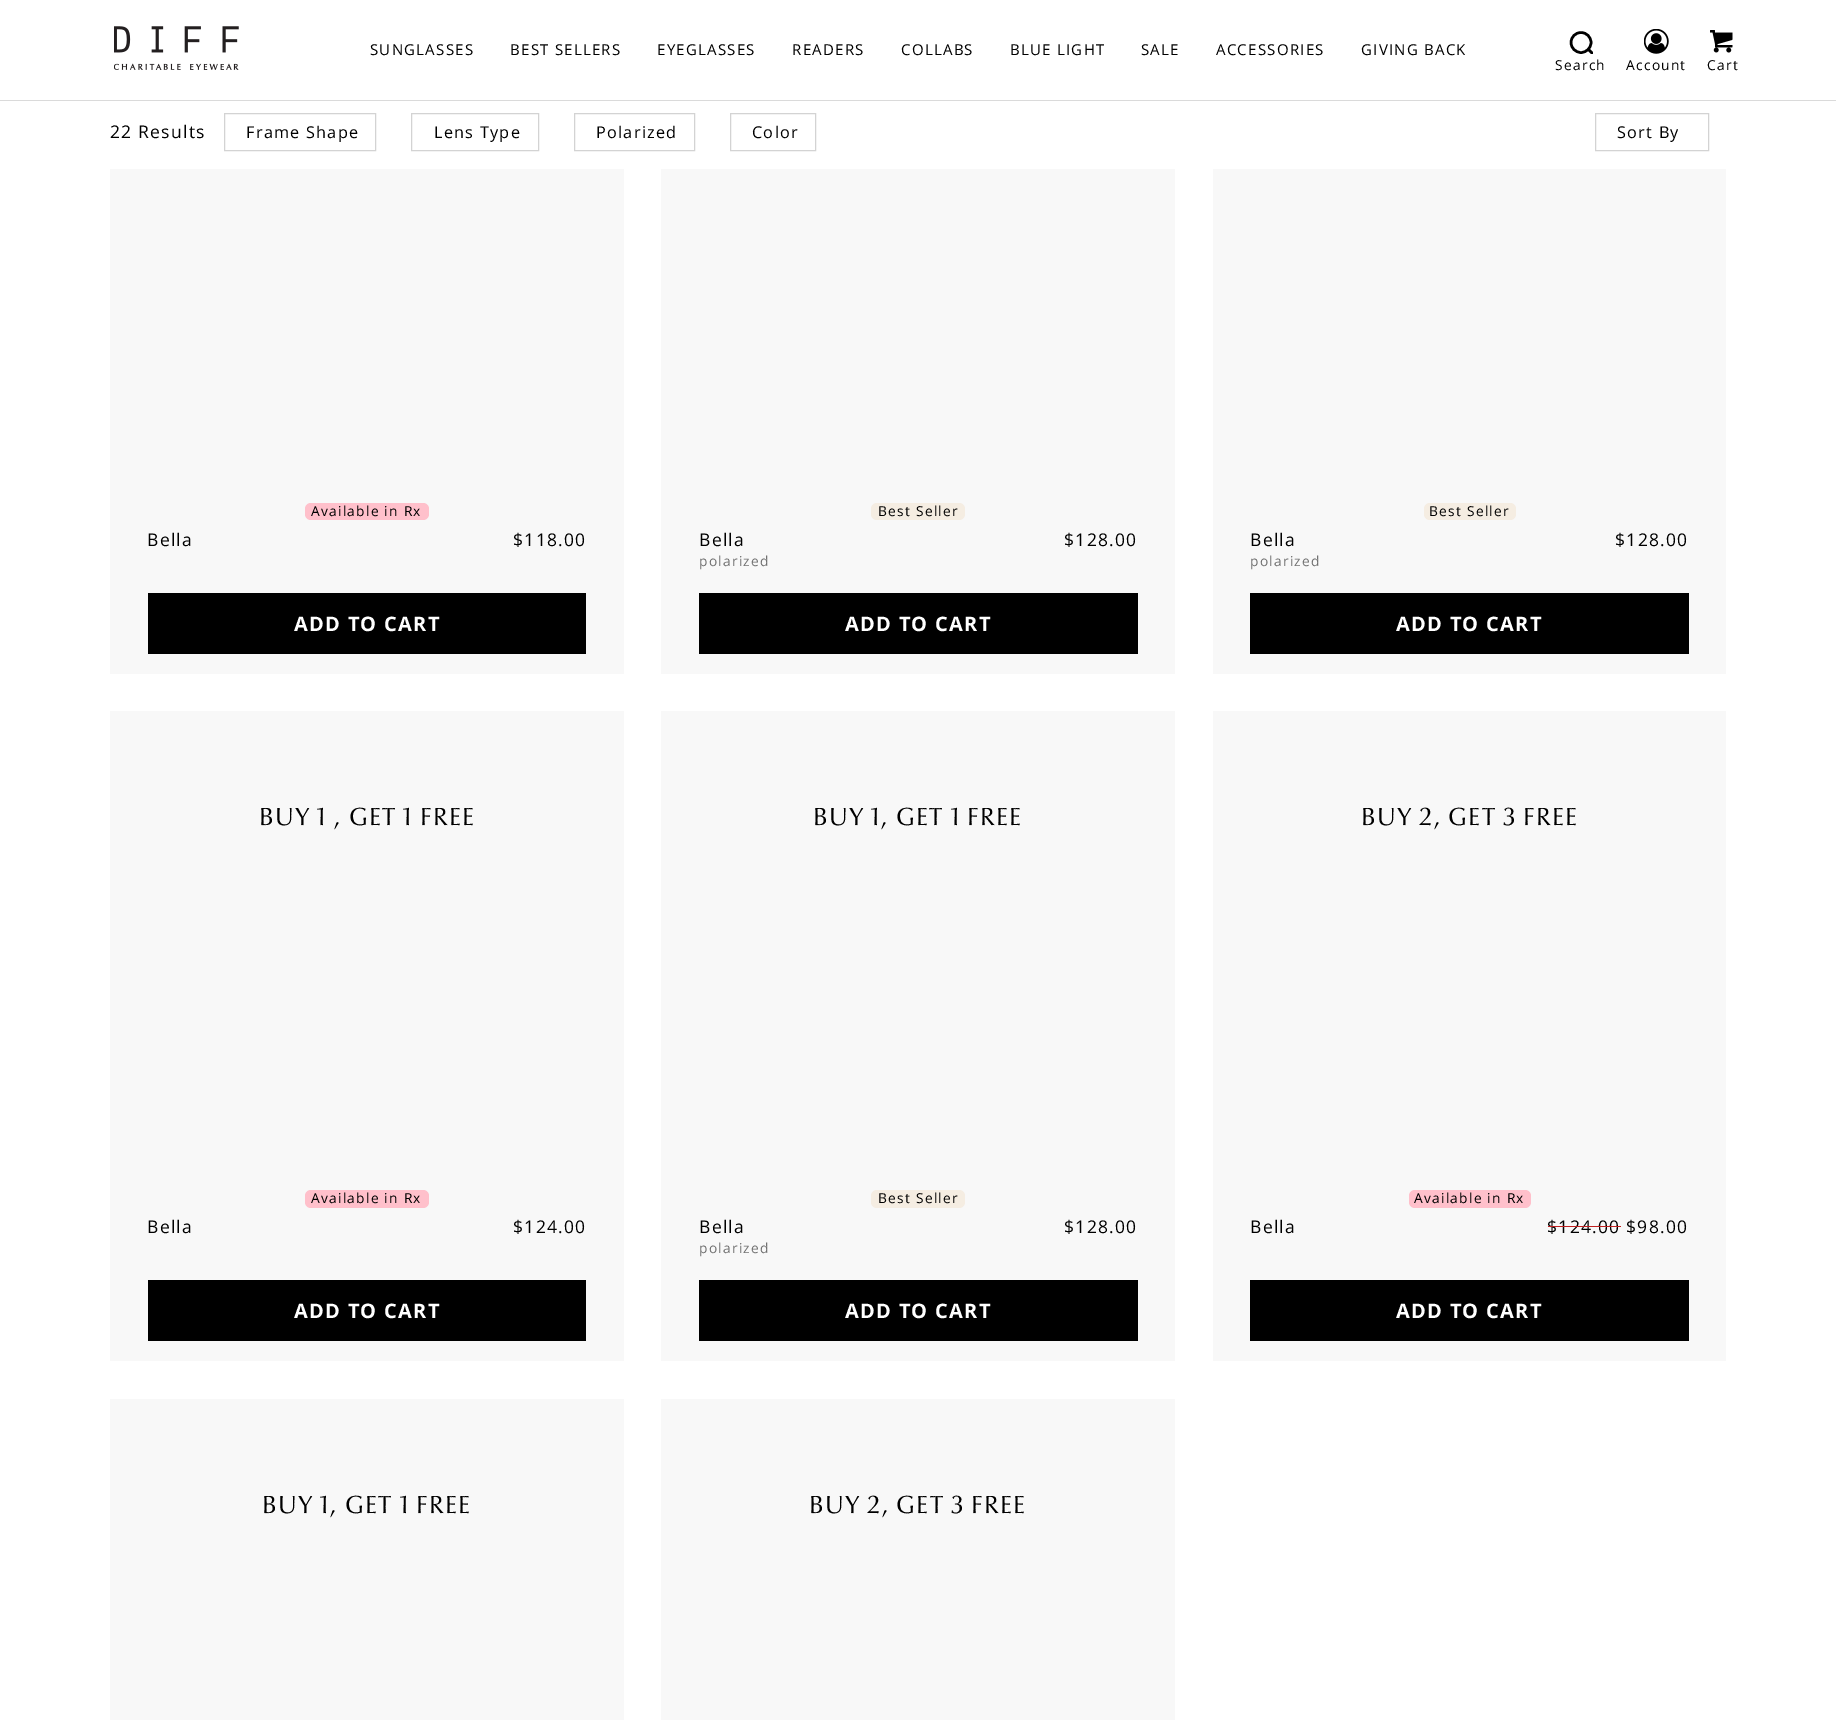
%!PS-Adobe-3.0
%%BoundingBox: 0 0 1836 1720
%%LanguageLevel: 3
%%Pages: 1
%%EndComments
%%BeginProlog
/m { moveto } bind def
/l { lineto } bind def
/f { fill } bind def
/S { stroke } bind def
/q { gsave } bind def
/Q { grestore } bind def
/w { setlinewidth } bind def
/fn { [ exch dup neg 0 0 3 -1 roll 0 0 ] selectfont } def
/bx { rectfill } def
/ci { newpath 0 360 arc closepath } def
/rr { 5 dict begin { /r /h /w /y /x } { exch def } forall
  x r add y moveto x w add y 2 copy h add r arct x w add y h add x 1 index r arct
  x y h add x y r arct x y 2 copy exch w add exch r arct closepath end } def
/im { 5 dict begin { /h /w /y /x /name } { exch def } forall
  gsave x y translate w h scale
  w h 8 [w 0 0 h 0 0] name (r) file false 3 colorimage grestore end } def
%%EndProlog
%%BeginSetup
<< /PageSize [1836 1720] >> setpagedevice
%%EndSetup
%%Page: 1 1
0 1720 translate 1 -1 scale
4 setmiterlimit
1 setgray
0 0 1836 1720 bx
0.855 setgray
0 100 1836 1 bx
(image0.raw) 114 26 125 44 im
/OpenSans-Regular 15 fn
0 setgray
370 55 m 1.25 0 (SUNGLASSES) ashow
510 55 m 1.25 0 (BEST SELLERS) ashow
657 55 m 1.25 0 (EYEGLASSES) ashow
792 55 m 1.25 0 (READERS) ashow
901 55 m 1.25 0 (COLLABS) ashow
1010 55 m 1.25 0 (BLUE LIGHT) ashow
1141 55 m 1.25 0 (SALE) ashow
1216 55 m 1.25 0 (ACCESSORIES) ashow
1361 55 m 1.25 0 (GIVING BACK) ashow
2.5 w
1581 42.5 10 ci S
q
1568 29 25 25 rectclip
1 setlinecap
1 setlinejoin
1594 55 m 1588.5 49.5 l S
Q
/OpenSans-Regular 13.75 fn
1555 70 m 1.25 0 (Search) ashow
(image1.raw) 1644 29 25 25 im
1626 70 m 1.25 0 (Account) ashow
(image2.raw) 1710 30 23 23 im
1707 70 m 1.25 0 (Cart) ashow
/OpenSans-Regular 17.5 fn
110 138 m 1.25 0 (22 Results) ashow
0.827 setgray
1 w
224.5 113.5 151 37 rectstroke
/OpenSans-Regular 16.25 fn
0 setgray
246 138 m 1.25 0 (Frame Shape) ashow
0.827 setgray
411.5 113.5 127 37 rectstroke
0 setgray
434 138 m 1.25 0 (Lens Type) ashow
0.827 setgray
574.5 113.5 120 37 rectstroke
0 setgray
596 138 m 1.25 0 (Polarized) ashow
0.827 setgray
730.5 113.5 85 37 rectstroke
0 setgray
752 138 m 1.25 0 (Color) ashow
0.827 setgray
1595.5 113.5 113 37 rectstroke
0 setgray
1617 138 m 1.25 0 (Sort By) ashow
0.973 setgray
110 169 514 505 bx
1 0.753 0.796 setrgbcolor
305 503 124 17 6 rr f
/OpenSans-Regular 13.75 fn
0 setgray
311 516 m 1.25 0 (Available in Rx) ashow
/OpenSans-Regular 17.5 fn
147 546 m 1.25 0 (Bella) ashow
513 546 m 1.25 0 ($118.00) ashow
148 593 438 61 bx
/OpenSans-Bold 20 fn
1 setgray
294 631 m 1.25 0 (ADD TO CART) ashow
0.973 setgray
661 169 514 505 bx
0.961 0.929 0.886 setrgbcolor
871 503 94 17 6 rr f
/OpenSans-Regular 13.75 fn
0 setgray
878 516 m 1.25 0 (Best Seller) ashow
/OpenSans-Regular 17.5 fn
699 546 m 1.25 0 (Bella) ashow
/OpenSans-Regular 13.75 fn
0.443 setgray
699 566 m 1.25 0 (polarized) ashow
/OpenSans-Regular 17.5 fn
0 setgray
1064 546 m 1.25 0 ($128.00) ashow
699 593 439 61 bx
/OpenSans-Bold 20 fn
1 setgray
845 631 m 1.25 0 (ADD TO CART) ashow
0.973 setgray
1213 169 513 505 bx
0.961 0.929 0.886 setrgbcolor
1424 503 92 17 6 rr f
/OpenSans-Regular 13.75 fn
0 setgray
1429 516 m 1.25 0 (Best Seller) ashow
/OpenSans-Regular 17.5 fn
1250 546 m 1.25 0 (Bella) ashow
/OpenSans-Regular 13.75 fn
0.443 setgray
1250 566 m 1.25 0 (polarized) ashow
/OpenSans-Regular 17.5 fn
0 setgray
1615 546 m 1.25 0 ($128.00) ashow
1250 593 439 61 bx
/OpenSans-Bold 20 fn
1 setgray
1396 631 m 1.25 0 (ADD TO CART) ashow
0.973 setgray
110 711 514 650 bx
/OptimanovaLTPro-Regular 25 fn
0 setgray
259 825 m 1.25 0 (BUY 1 , GET 1 FREE) ashow
1 0.753 0.796 setrgbcolor
305 1190 124 18 6 rr f
/OpenSans-Regular 13.75 fn
0 setgray
311 1203 m 1.25 0 (Available in Rx) ashow
/OpenSans-Regular 17.5 fn
147 1233 m 1.25 0 (Bella) ashow
513 1233 m 1.25 0 ($124.00) ashow
148 1280 438 61 bx
/OpenSans-Bold 20 fn
1 setgray
294 1318 m 1.25 0 (ADD TO CART) ashow
0.973 setgray
661 711 514 650 bx
/OptimanovaLTPro-Regular 25 fn
0 setgray
813 825 m 1.25 0 (BUY 1, GET 1 FREE) ashow
0.961 0.929 0.886 setrgbcolor
871 1190 94 18 6 rr f
/OpenSans-Regular 13.75 fn
0 setgray
878 1203 m 1.25 0 (Best Seller) ashow
/OpenSans-Regular 17.5 fn
699 1233 m 1.25 0 (Bella) ashow
/OpenSans-Regular 13.75 fn
0.443 setgray
699 1253 m 1.25 0 (polarized) ashow
/OpenSans-Regular 17.5 fn
0 setgray
1064 1233 m 1.25 0 ($128.00) ashow
699 1280 439 61 bx
/OpenSans-Bold 20 fn
1 setgray
845 1318 m 1.25 0 (ADD TO CART) ashow
0.973 setgray
1213 711 513 650 bx
/OptimanovaLTPro-Regular 25 fn
0 setgray
1361 825 m 1.25 0 (BUY 2, GET 3 FREE) ashow
1 0.753 0.796 setrgbcolor
1409 1190 122 18 6 rr f
/OpenSans-Regular 13.75 fn
0 setgray
1414 1203 m 1.25 0 (Available in Rx) ashow
/OpenSans-Regular 17.5 fn
1250 1233 m 1.25 0 (Bella) ashow
1547 1233 m 1.25 0 ($124.00 $98.00) ashow
0.753 0.129 0.129 setrgbcolor
1548 1226 73 1 bx
0 setgray
1250 1280 439 61 bx
/OpenSans-Bold 20 fn
1 setgray
1396 1318 m 1.25 0 (ADD TO CART) ashow
0.973 setgray
110 1399 514 321 bx
/OptimanovaLTPro-Regular 25 fn
0 setgray
262 1513 m 1.25 0 (BUY 1, GET 1 FREE) ashow
0.973 setgray
661 1399 514 321 bx
0 setgray
809 1513 m 1.25 0 (BUY 2, GET 3 FREE) ashow
showpage
%%EOF
